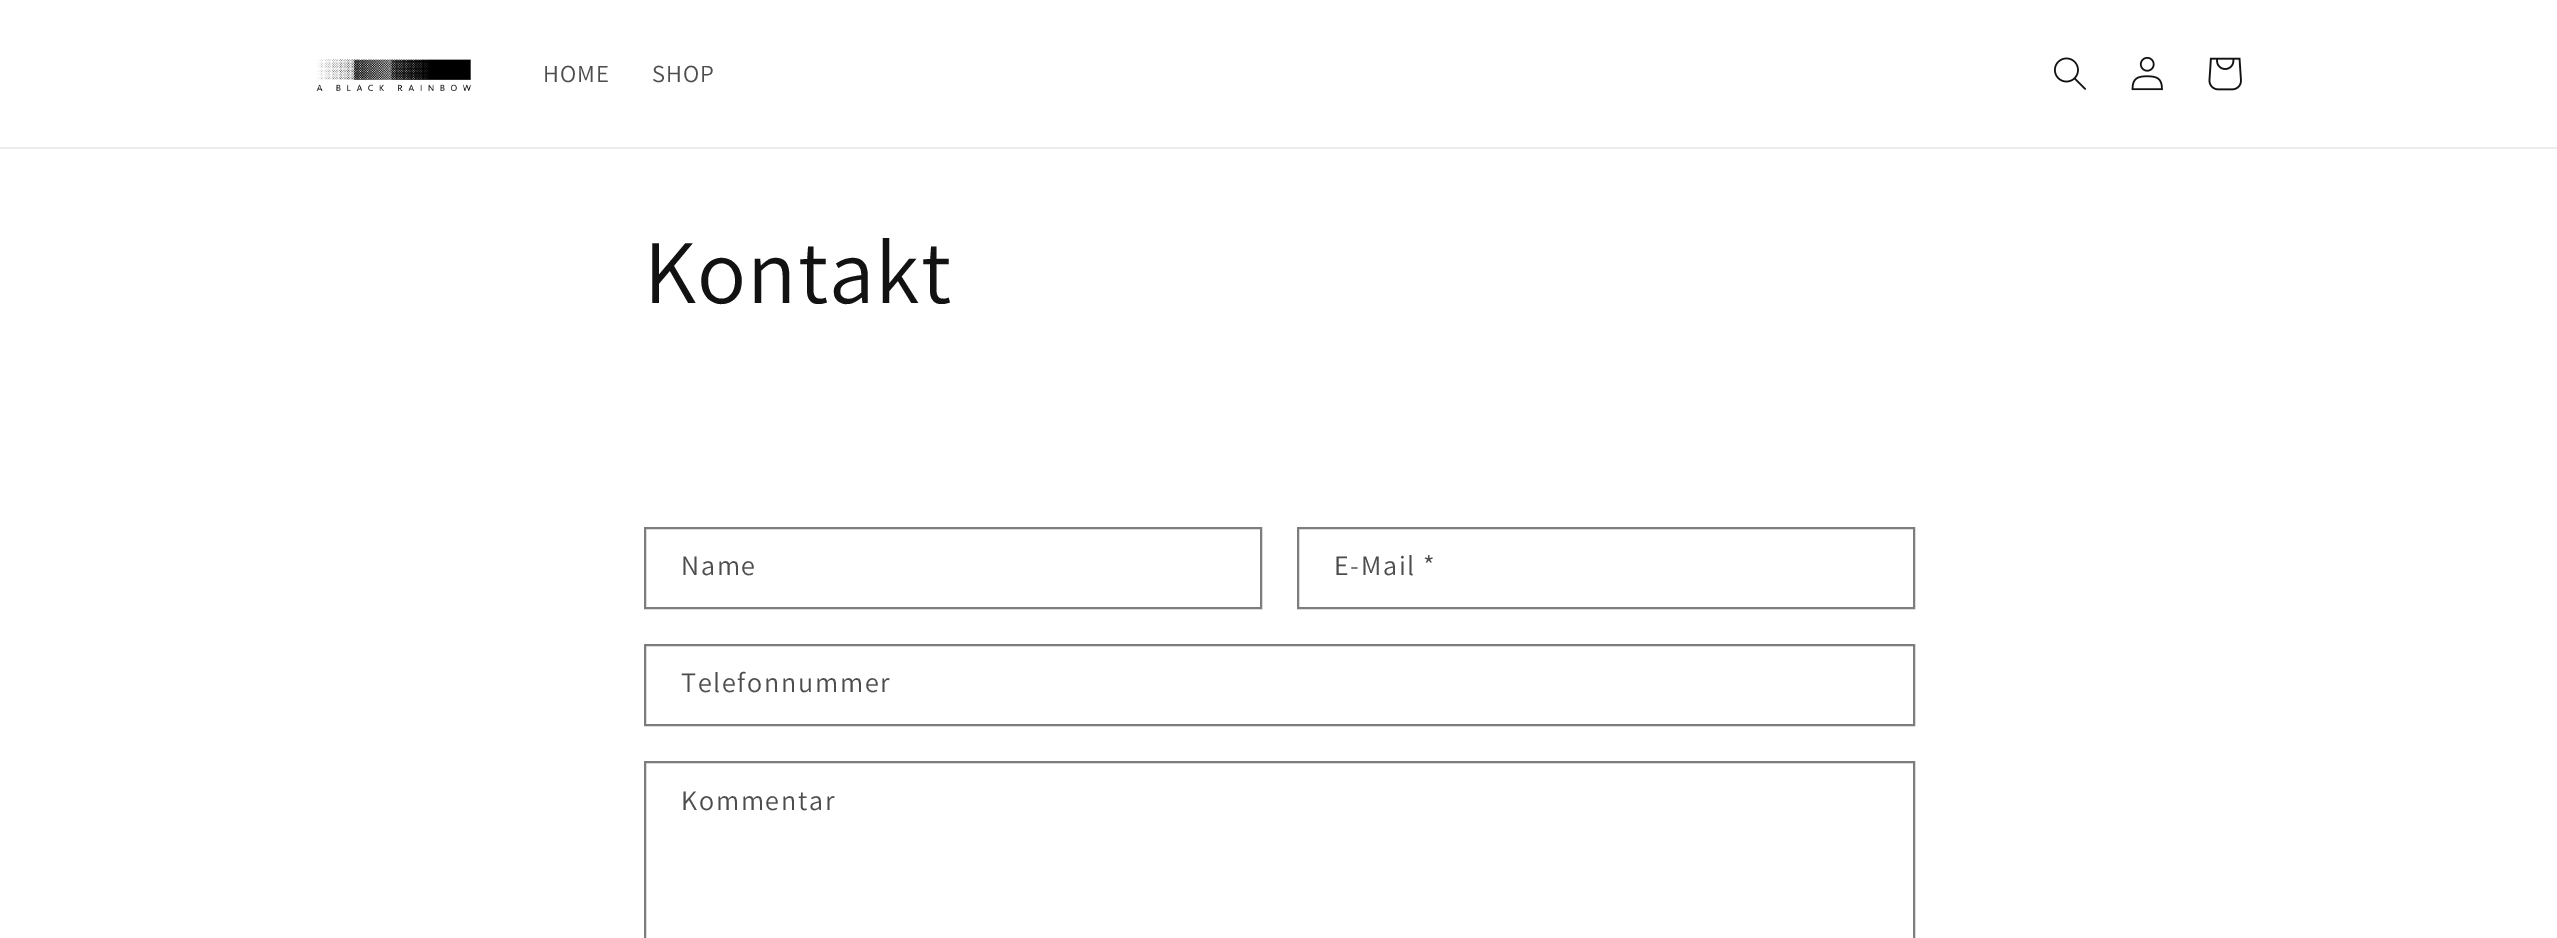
%!PS-Adobe-3.0
%%BoundingBox: 0 0 2557 938
%%LanguageLevel: 3
%%Pages: 1
%%EndComments
%%BeginProlog
/m { moveto } bind def
/w { setlinewidth } bind def
/fn { [ exch dup neg 0 0 3 -1 roll 0 0 ] selectfont } def
/bx { rectfill } def
/im { 5 dict begin { /h /w /y /x /name } { exch def } forall
  gsave x y translate w h scale
  w h 8 [w 0 0 h 0 0] name (r) file false 3 colorimage grestore end } def
%%EndProlog
%%BeginSetup
<< /PageSize [2557 938] >> setpagedevice
%%EndSetup
%%Page: 1 1
0 938 translate 1 -1 scale
4 setmiterlimit
1 setgray
0 0 2557 938 bx
0.925 setgray
0 147 2557 2 bx
(image0.raw) 316 59 155 32 im
/Assistant-Regular 24.5 fn
0.302 setgray
543 82 m 1 0 (HOME) ashow
652 82 m 1 0 (SHOP) ashow
(image1.raw) 2054 57 32 33 im
(image2.raw) 2131 56 32 35 im
(image3.raw) 2208 57 34 34 im
/Assistant-Regular 91 fn
0.071 setgray
644 303 m 1 0 (Kontakt) ashow
0.49 setgray
2 w
645 528 616 80 rectstroke
/Assistant-Regular 28 fn
0.302 setgray
681 575 m 1.75 0 (Name) ashow
0.49 setgray
1298 528 616 80 rectstroke
0.302 setgray
1334 575 m 1.75 0 (E-Mail *) ashow
0.49 setgray
645 645 1269 80 rectstroke
0.302 setgray
681 692 m 1.75 0 (Telefonnummer) ashow
0.49 setgray
645 762 1269 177 rectstroke
0.302 setgray
681 810 m 1.75 0 (Kommentar) ashow
showpage
%%EOF
